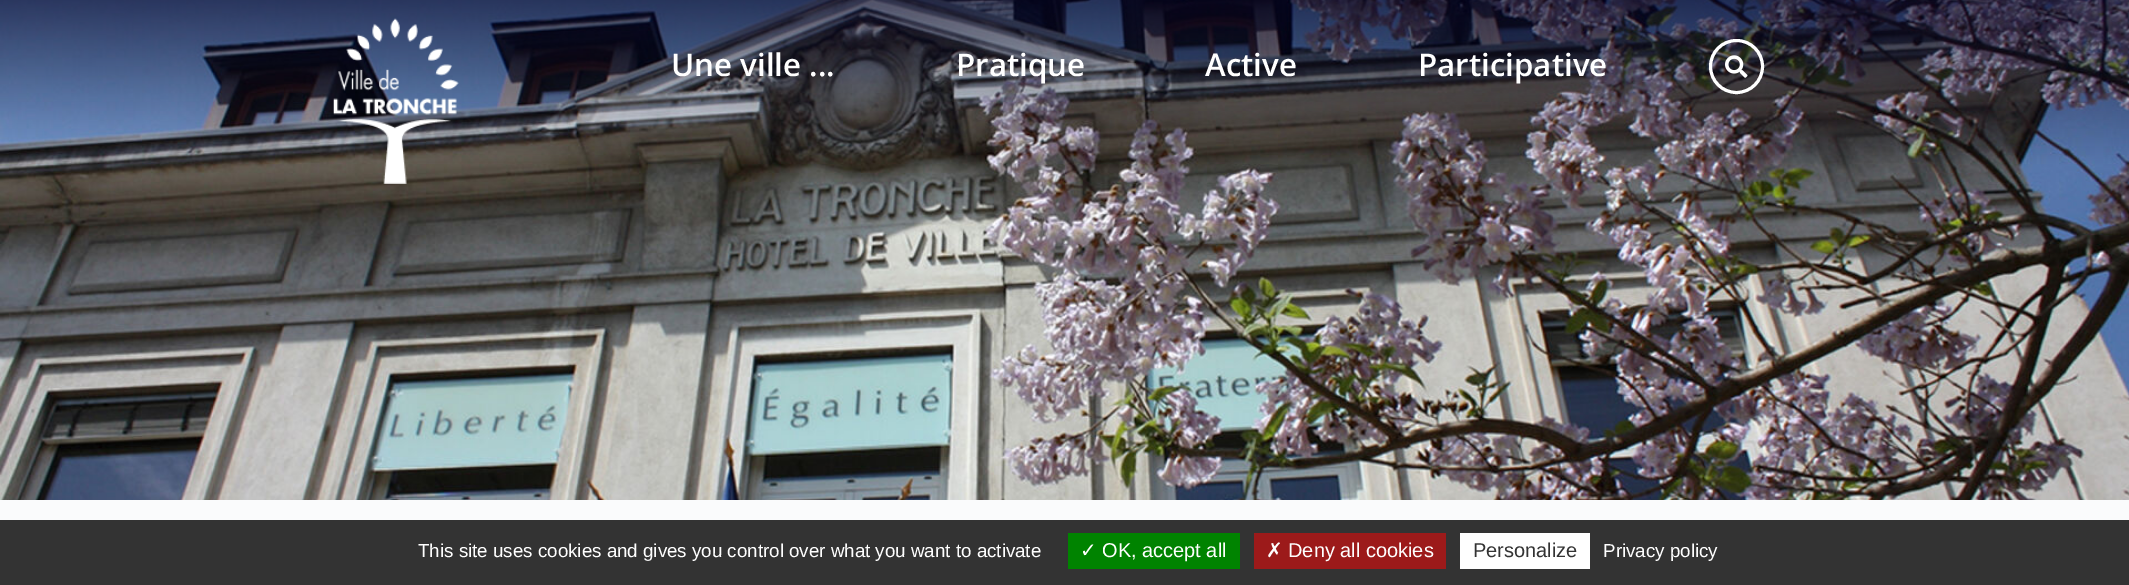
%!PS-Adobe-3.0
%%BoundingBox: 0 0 2129 585
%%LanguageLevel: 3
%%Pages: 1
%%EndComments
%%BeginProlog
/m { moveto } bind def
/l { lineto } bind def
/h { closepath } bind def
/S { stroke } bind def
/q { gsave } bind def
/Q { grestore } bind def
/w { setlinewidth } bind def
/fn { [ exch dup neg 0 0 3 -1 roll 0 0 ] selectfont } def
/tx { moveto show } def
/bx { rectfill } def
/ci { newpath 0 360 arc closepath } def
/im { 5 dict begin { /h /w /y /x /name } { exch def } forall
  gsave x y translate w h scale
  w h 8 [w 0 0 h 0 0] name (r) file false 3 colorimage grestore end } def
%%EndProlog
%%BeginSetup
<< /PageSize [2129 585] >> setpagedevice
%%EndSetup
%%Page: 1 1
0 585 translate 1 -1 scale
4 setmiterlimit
1 setgray
0 0 2129 585 bx
(image0.raw) 0 0 2129 500 im
(image1.raw) 333 18 126 166 im
/OpenSans-SemiBold 31.25 fn
(Une ville ...) 671 76 tx
(Pratique) 956 76 tx
(Active) 1205 76 tx
(Participative) 1418 76 tx
3 w
1736.5 66.5 26 ci S
(image2.raw) 1725 55 23 23 im
q 0 500 m 2129 500 l 2129 520 l 0 520 l h clip newpath
<< /ShadingType 2 /ColorSpace /DeviceRGB /Coords [1065 112 1065 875] /Extend [true true] /Function << /FunctionType 2 /Domain [0 1] /C0 [0.961 0.969 0.976] /C1 [1 1 1] /N 1 >> >> shfill Q
0.2 setgray
0 520 2129 65 bx
/LiberationSans-Regular 18.75 fn
1 setgray
(This site uses cookies and gives you control over what you want to activate) 418 557 tx
0 0.514 0 setrgbcolor
1068 533 172 36 bx
/DejaVuSans-Regular 20 fn
1 setgray
(✓) 1080 557 tx
/LiberationSans-Regular 20 fn
(OK, accept all) 1102 557 tx
0.612 0.102 0.102 setrgbcolor
1254 533 192 36 bx
/DejaVuSans-Regular 20 fn
1 setgray
(✗) 1266 557 tx
/LiberationSans-Regular 20 fn
(Deny all cookies) 1288 557 tx
1460 533 130 36 bx
0.2 setgray
(Personalize) 1473 557 tx
/LiberationSans-Regular 18.75 fn
1 setgray
(Privacy policy) 1603 557 tx
showpage
%%EOF
